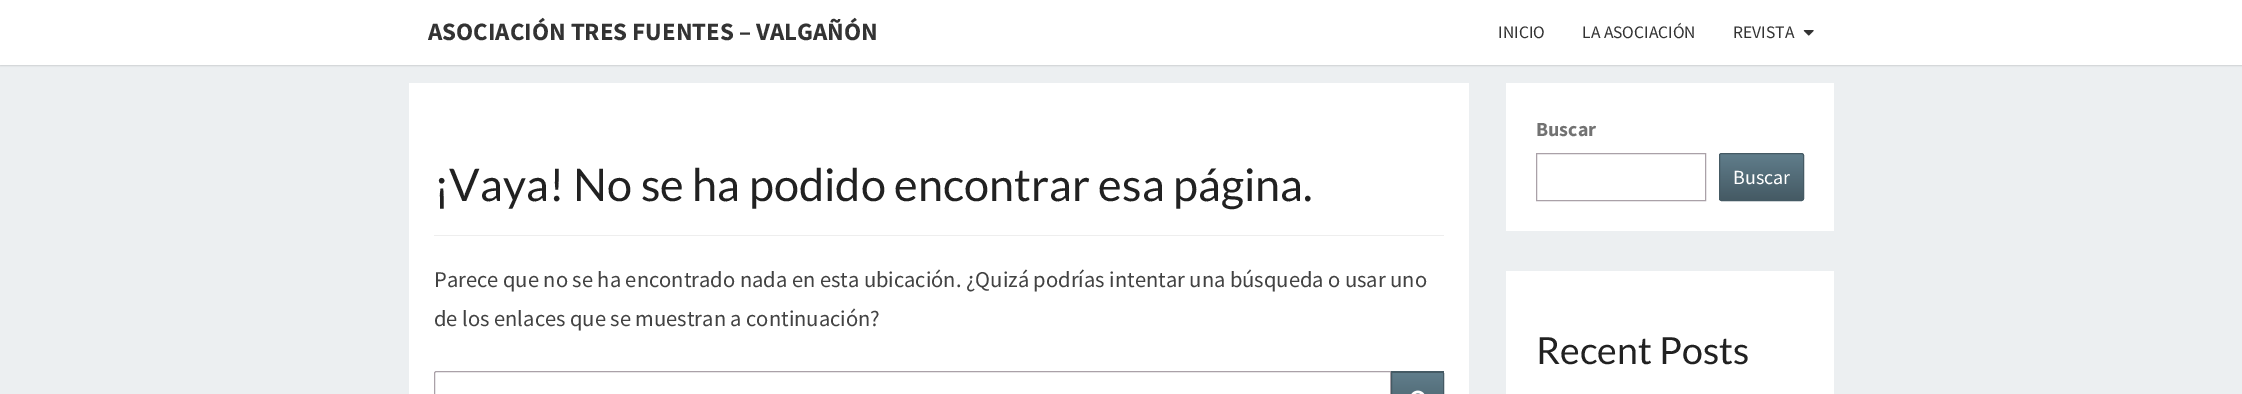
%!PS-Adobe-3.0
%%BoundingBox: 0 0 2242 394
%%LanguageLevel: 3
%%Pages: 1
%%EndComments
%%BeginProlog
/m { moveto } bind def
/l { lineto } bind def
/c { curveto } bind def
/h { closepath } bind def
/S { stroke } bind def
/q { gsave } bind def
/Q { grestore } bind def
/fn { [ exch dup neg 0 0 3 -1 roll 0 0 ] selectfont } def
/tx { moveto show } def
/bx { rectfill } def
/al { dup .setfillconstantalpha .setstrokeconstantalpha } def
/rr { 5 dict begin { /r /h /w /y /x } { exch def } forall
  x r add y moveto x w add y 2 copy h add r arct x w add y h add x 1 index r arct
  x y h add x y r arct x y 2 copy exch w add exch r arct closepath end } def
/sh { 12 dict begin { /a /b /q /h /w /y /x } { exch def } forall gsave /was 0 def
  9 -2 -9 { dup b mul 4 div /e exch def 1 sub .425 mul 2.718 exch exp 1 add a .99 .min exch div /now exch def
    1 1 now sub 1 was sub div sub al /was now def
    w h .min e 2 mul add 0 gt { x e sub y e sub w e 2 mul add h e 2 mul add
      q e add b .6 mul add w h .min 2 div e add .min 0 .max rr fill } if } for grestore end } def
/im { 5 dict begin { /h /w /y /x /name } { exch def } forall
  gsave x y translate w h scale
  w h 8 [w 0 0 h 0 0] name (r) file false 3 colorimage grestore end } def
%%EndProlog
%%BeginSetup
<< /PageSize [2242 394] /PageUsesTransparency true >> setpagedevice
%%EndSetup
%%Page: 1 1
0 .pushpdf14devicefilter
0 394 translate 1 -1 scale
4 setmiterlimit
0.925 0.937 0.945 setrgbcolor
0 0 2242 394 bx
0.392 setgray
0 1 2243 65 0 0.5 0.2 sh
1 setgray
0 0 2242 65 bx
/SourceSansPro-Bold 25 fn
0.2 setgray
(ASOCIACIÓN TRES FUENTES – VALGAÑÓN) 428 40 tx
/SourceSansPro-Regular 17.5 fn
(INICIO) 1498 38 tx
(LA ASOCIACIÓN) 1582 38 tx
(REVISTA) 1733 38 tx
(image0.raw) 1803 30 11 6 im
1 setgray
409 83 1060 311 bx
0.933 setgray
434 235 1010 1 bx
/Lato-Regular 45 fn
0.129 setgray
(¡Vaya! No se ha podido encontrar esa página.) 434 201 tx
/SourceSansPro-Regular 22.5 fn
0.259 setgray
(Parece que no se ha encontrado nada en esta ubicación. ¿Quizá podrías intentar una búsqueda o usar uno) 434 287 tx
(de los enlaces que se muestran a continuación?) 434 326 tx
0.667 0.631 0.659 setrgbcolor
436.5 371.5 m 1390.5 371.5 l 1390.5 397.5 l 436.5 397.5 l 435.5 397.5 434.5 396.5 434.5 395.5 c 434.5 373.5 l 434.5 372.5 435.5 371.5 436.5 371.5 c h S
q
1391 371 m 1441.5 371 l 1443 371 1444 372 1444 373.5 c 1444 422.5 l 1444 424 1443 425 1441.5 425 c 1391 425 l h clip newpath
q 1391 371 m 1444 371 l 1444 373 l 1391 373 l h clip newpath
<< /ShadingType 2 /ColorSpace /DeviceRGB /Coords [1418 321 1418 373] /Extend [true true] /Function << /FunctionType 2 /Domain [0 1] /C0 [0.376 0.49 0.545] /C1 [0.271 0.353 0.392] /N 1 >> >> shfill Q
Q
q 1392 373 m 1444 373 l 1444 394 l 1392 394 l h clip newpath
<< /ShadingType 2 /ColorSpace /DeviceRGB /Coords [1418 373 1418 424] /Extend [true true] /Function << /FunctionType 2 /Domain [0 1] /C0 [0.376 0.49 0.545] /C1 [0.271 0.353 0.392] /N 1 >> >> shfill Q
0.271 0.353 0.392 setrgbcolor
1391.5 371.5 m 1441.5 371.5 l 1442.5 371.5 1443.5 372.5 1443.5 373.5 c 1443.5 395.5 l 1443.5 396.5 1442.5 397.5 1441.5 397.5 c 1391.5 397.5 l h S
(image1.raw) 1411 390 14 4 im
1 setgray
1506 83 328 148 bx
/SourceSansPro-Bold 20 fn
0.447 setgray
(Buscar) 1536 136 tx
0.667 0.631 0.659 setrgbcolor
1536.5 153.5 169 47 rectstroke
q
1719 153 85 48 2.5 rr clip newpath
q 1719 154 m 1804 154 l 1804 200 l 1719 200 l h clip newpath
<< /ShadingType 2 /ColorSpace /DeviceRGB /Coords [1761 154 1761 200] /Extend [true true] /Function << /FunctionType 2 /Domain [0 1] /C0 [0.376 0.49 0.545] /C1 [0.271 0.353 0.392] /N 1 >> >> shfill Q
Q
0.271 0.353 0.392 setrgbcolor
1719.5 153.5 84 47 2 rr S
/SourceSansPro-Regular 20 fn
1 setgray
(Buscar) 1733 184 tx
1506 271 328 123 bx
/Lato-Regular 37.5 fn
0.129 setgray
(Recent Posts) 1536 364 tx
.poppdf14devicefilter showpage
%%EOF
